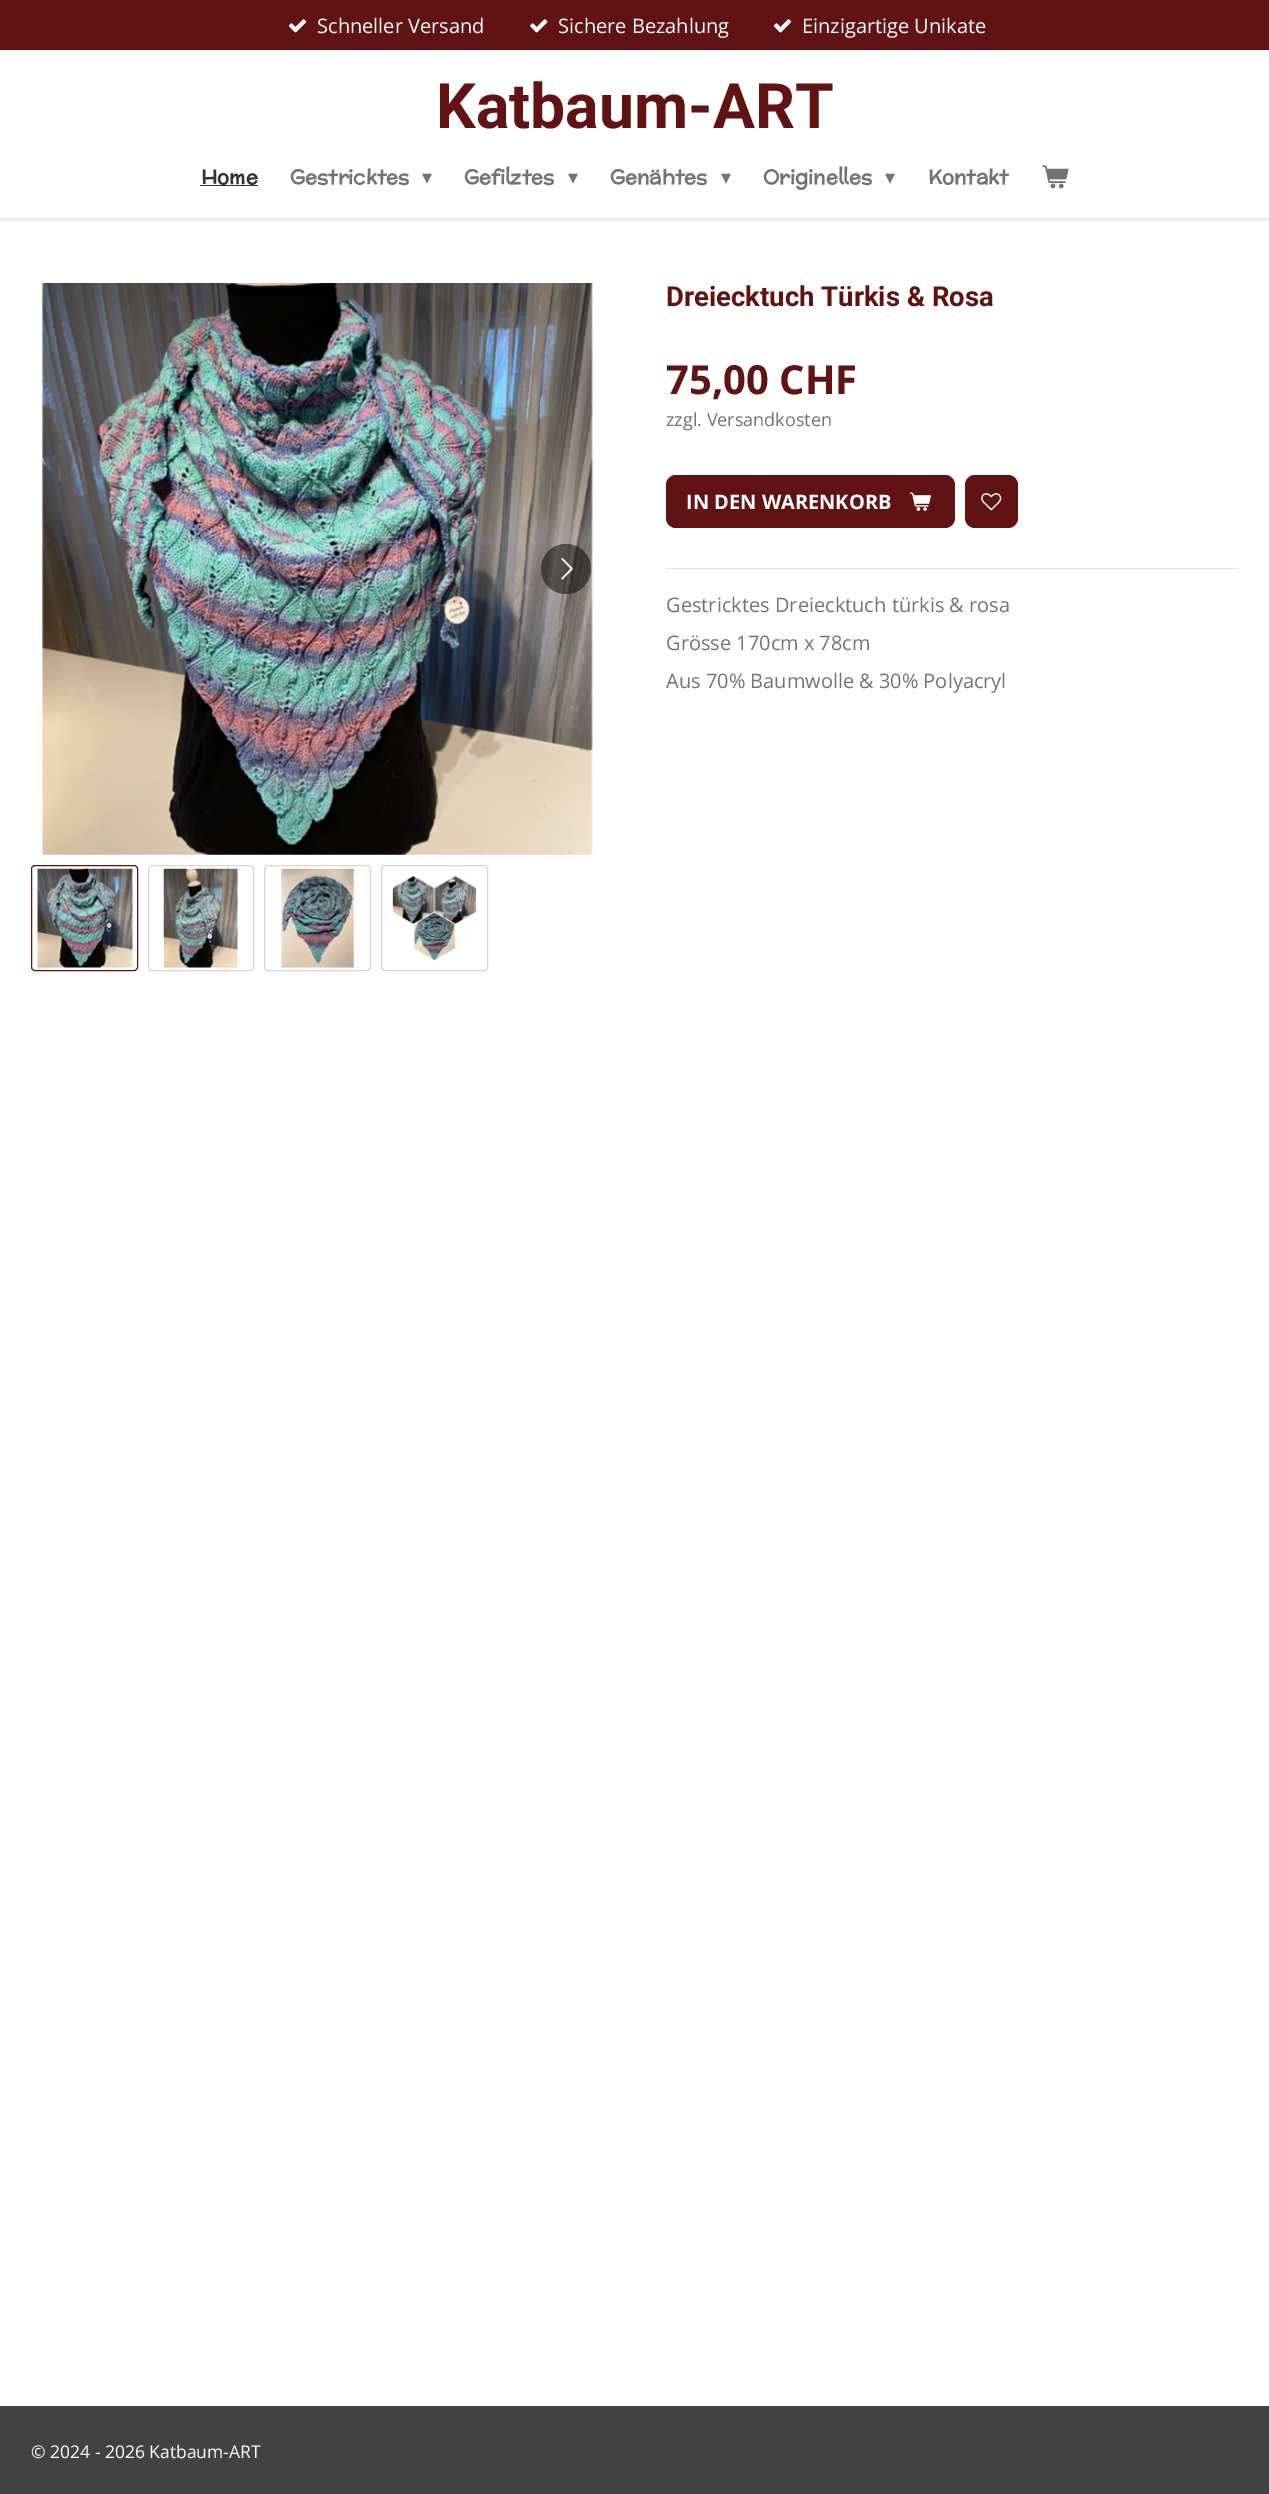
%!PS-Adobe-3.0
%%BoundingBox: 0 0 1269 2494
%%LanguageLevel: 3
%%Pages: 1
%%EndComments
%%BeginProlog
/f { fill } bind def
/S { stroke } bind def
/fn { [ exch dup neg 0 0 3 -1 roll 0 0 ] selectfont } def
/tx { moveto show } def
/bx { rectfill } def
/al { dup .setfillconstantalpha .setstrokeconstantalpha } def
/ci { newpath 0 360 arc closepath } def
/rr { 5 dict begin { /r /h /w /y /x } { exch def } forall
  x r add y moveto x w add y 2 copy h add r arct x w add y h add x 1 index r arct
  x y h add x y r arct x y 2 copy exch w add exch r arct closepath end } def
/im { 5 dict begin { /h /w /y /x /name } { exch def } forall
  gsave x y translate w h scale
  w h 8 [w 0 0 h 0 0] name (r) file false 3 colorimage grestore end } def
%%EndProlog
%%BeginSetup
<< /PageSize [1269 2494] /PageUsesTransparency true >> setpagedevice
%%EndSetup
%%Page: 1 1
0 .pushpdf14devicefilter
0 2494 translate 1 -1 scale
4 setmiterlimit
1 setgray
0 0 1269 2494 bx
0.38 0.075 0.075 setrgbcolor
0 0 1269 50 bx
(image0.raw) 288 19 19 14 im
/OpenSans-Regular 20 fn
1 setgray
(Schneller Versand) 317 33 tx
(image1.raw) 530 19 18 14 im
(Sichere Bezahlung) 558 33 tx
(image0.raw) 773 19 19 14 im
(Einzigartige Unikate) 802 33 tx
/Roboto-Bold 62.5 fn
0.38 0.075 0.075 setrgbcolor
(Katbaum-ART) 436 128 tx
/McLaren-Bold 20 fn
0.2 setgray
(Home) 201 184 tx
200 185 58 1 bx
0.451 setgray
(Gestricktes) 290 184 tx
/DejaVuSans-Regular 20 fn
(▾) 422 184 tx
/McLaren-Bold 20 fn
(Gefilztes) 464 184 tx
/DejaVuSans-Regular 20 fn
(▾) 568 184 tx
/McLaren-Bold 20 fn
(Genähtes) 610 184 tx
/DejaVuSans-Regular 20 fn
(▾) 721 184 tx
/McLaren-Bold 20 fn
(Originelles) 763 184 tx
/DejaVuSans-Regular 20 fn
(▾) 885 184 tx
/McLaren-Bold 20 fn
(Kontakt) 928 184 tx
(image2.raw) 1042 165 27 24 im
0.918 setgray
0 218 1269 3 bx
(image3.raw) 42 283 552 572 im
0.5 al
0 setgray
566 569 25 ci f
1 al
(image4.raw) 561 558 12 22 im
0.38 0.075 0.075 setrgbcolor
31.5 865.5 106 105 3.5 rr S
(image5.raw) 37 868 96 100 im
0.835 setgray
148.5 865.5 105 105 3.5 rr S
(image6.raw) 163 868 75 100 im
264.5 865.5 106 105 3.5 rr S
(image7.raw) 281 868 73 100 im
381.5 865.5 106 105 3.5 rr S
(image8.raw) 392 875 86 89 im
/Roboto-Bold 27.5 fn
0.38 0.075 0.075 setrgbcolor
(Dreiecktuch Türkis & Rosa) 666 306 tx
/OpenSans-Bold 40 fn
(75,00 CHF) 666 394 tx
/OpenSans-Regular 18 fn
0.451 setgray
(zzgl. Versandkosten) 666 426 tx
0.38 0.075 0.075 setrgbcolor
666 475 289 53 10 rr f
/OpenSans-Bold 20 fn
1 setgray
(IN DEN WARENKORB) 686 509 tx
(image9.raw) 910 492 21 19 im
0.38 0.075 0.075 setrgbcolor
965 475 53 53 10 rr f
(image10.raw) 981 493 21 18 im
0.89 setgray
666 568 573 1 bx
/OpenSans-Regular 20 fn
0.451 setgray
(Gestricktes Dreiecktuch türkis & rosa) 666 612 tx
(Grösse 170cm x 78cm) 666 650 tx
(Aus 70% Baumwolle & 30% Polyacryl) 666 688 tx
0.259 setgray
0 2406 1269 88 bx
/OpenSans-Regular 17.5 fn
1 setgray
(© 2024 - 2026 Katbaum-ART) 31 2458 tx
.poppdf14devicefilter showpage
%%EOF
